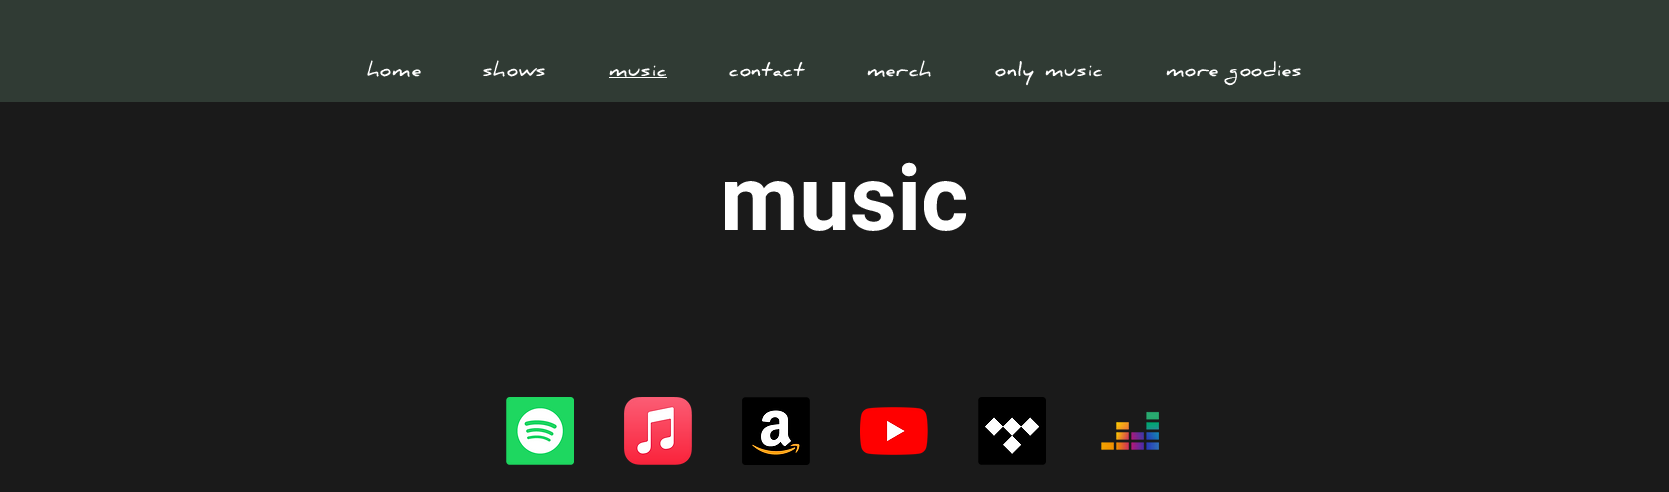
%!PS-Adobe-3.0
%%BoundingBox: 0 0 1669 492
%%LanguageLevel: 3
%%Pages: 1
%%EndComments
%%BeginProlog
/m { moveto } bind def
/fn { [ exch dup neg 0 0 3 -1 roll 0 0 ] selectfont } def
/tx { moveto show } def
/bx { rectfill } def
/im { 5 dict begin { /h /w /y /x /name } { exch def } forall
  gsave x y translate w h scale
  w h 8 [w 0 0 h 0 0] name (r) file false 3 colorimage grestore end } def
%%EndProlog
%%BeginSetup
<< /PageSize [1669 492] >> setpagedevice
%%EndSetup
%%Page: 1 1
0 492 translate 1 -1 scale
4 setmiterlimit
0.102 setgray
0 0 1669 492 bx
0.188 0.231 0.204 setrgbcolor
0 0 1669 102 bx
/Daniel-Bold 18 fn
1 setgray
367 76 m 0.9 0 (home) ashow
483 76 m 0.9 0 (shows) ashow
609 76 m 0.9 0 (music) ashow
609 77 58 1 bx
729 76 m 0.9 0 (contact) ashow
867 76 m 0.9 0 (merch) ashow
995 76 m 0.9 0 (only music) ashow
1166 76 m 0.9 0 (more goodies) ashow
/Heebo-Bold 91 fn
(music) 720 230 tx
(image0.raw) 506 397 68 68 im
(image1.raw) 624 397 68 68 im
(image2.raw) 742 397 68 68 im
(image3.raw) 860 407 68 48 im
(image4.raw) 978 397 68 68 im
(image5.raw) 1101 411 58 39 im
showpage
%%EOF
